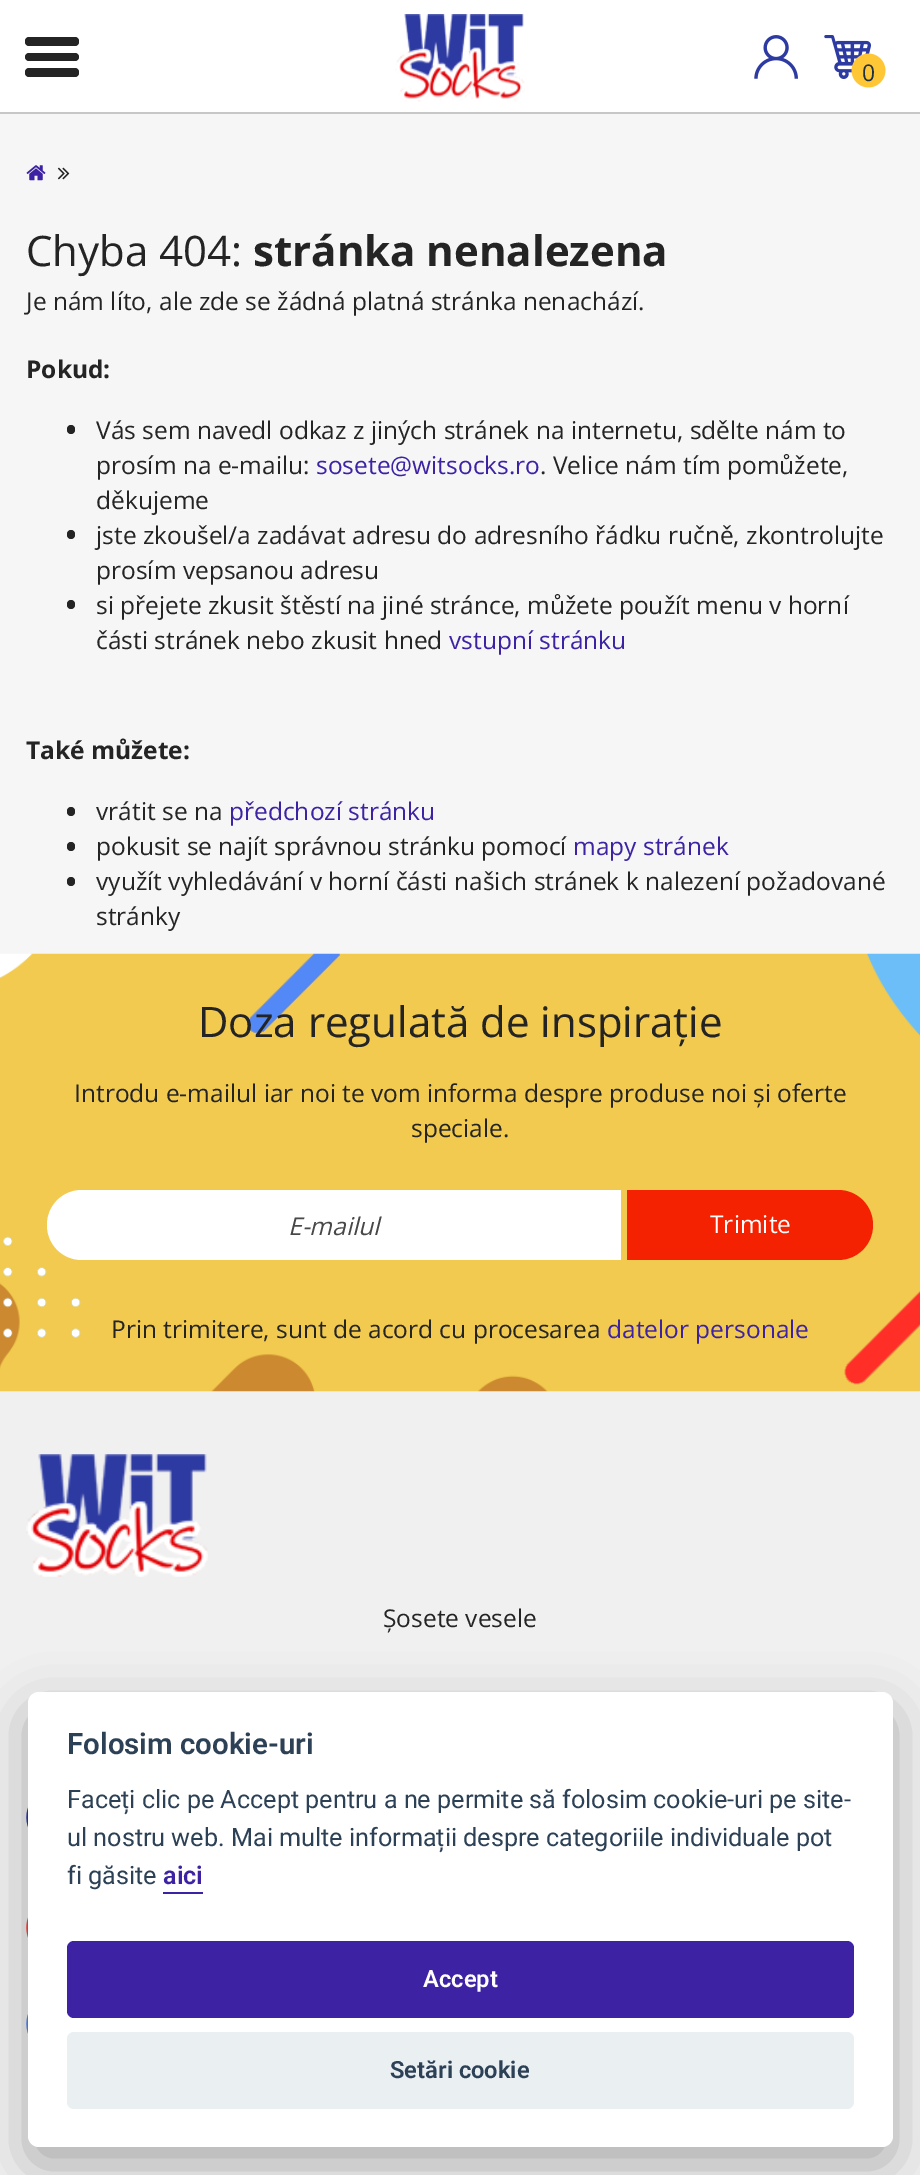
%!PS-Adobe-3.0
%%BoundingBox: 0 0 920 2175
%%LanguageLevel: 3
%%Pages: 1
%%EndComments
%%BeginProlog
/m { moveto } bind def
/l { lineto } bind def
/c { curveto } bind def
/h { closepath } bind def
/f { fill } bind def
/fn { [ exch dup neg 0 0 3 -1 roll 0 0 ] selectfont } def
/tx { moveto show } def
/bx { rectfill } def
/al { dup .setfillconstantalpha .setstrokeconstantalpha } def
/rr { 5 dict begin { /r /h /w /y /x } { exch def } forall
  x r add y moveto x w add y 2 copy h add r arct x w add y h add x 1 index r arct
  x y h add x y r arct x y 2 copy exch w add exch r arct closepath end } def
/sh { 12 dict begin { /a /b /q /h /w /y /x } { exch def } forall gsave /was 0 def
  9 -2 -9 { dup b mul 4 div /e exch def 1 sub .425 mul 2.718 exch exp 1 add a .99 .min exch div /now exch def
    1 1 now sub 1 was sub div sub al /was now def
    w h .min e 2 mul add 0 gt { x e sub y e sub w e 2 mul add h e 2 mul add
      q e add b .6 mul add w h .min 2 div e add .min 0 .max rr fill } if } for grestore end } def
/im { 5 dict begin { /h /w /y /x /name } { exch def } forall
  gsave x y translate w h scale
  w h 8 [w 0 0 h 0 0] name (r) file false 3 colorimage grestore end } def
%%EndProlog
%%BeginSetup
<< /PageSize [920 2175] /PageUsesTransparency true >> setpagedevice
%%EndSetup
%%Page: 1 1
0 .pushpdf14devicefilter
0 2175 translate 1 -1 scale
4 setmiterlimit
0.965 setgray
0 0 920 2175 bx
1 setgray
0 0 920 112 bx
0.784 0.78 0.78 setrgbcolor
0 112 920 2 bx
0.141 setgray
25 37 54 9 4 rr f
25 53 54 8 4 rr f
25 68 54 9 4 rr f
(image0.raw) 395 14 130 88 im
(image1.raw) 754 35 44 44 im
(image2.raw) 824 35 62 53 im
/OpenSans-Regular 23 fn
0.11 0.192 0.267 setrgbcolor
(0) 862 81 tx
(image3.raw) 26 165 20 16 im
(image4.raw) 57 167 13 13 im
/OpenSans-Regular 42 fn
0.141 setgray
(Chyba 404:) 26 266 tx
/OpenSans-Bold 42 fn
(stránka nenalezena) 253 266 tx
/OpenSans-Regular 24.5 fn
(Je nám líto, ale zde se žádná platná stránka nenachází.) 26 310 tx
/OpenSans-Bold 24.5 fn
(Pokud:) 26 378 tx
67 425 8 9 4 rr f
/OpenSans-Regular 24.5 fn
(Vás sem navedl odkaz z jiných stránek na internetu, sdělte nám to) 96 439 tx
(prosím na e-mailu:) 96 474 tx
0.239 0.133 0.639 setrgbcolor
(sosete@witsocks.ro) 316 474 tx
0.141 setgray
(. Velice nám tím pomůžete,) 540 474 tx
(děkujeme) 96 509 tx
67 530 8 9 4 rr f
(jste zkoušel/a zadávat adresu do adresního řádku ručně, zkontrolujte) 96 544 tx
(prosím vepsanou adresu) 96 579 tx
67 600 8 9 4 rr f
(si přejete zkusit štěstí na jiné stránce, můžete použít menu v horní) 96 614 tx
(části stránek nebo zkusit hned) 96 649 tx
0.239 0.133 0.639 setrgbcolor
(vstupní stránku) 449 649 tx
/OpenSans-Bold 24.5 fn
0.141 setgray
(Také můžete:) 26 759 tx
67 807 8 9 4 rr f
/OpenSans-Regular 24.5 fn
(vrátit se na) 96 820 tx
0.239 0.133 0.639 setrgbcolor
(předchozí stránku) 229 820 tx
0.141 setgray
67 842 8 9 4 rr f
(pokusit se najít správnou stránku pomocí) 96 855 tx
0.239 0.133 0.639 setrgbcolor
(mapy stránek) 573 855 tx
0.141 setgray
67 877 8 9 4 rr f
(využít vyhledávání v horní části našich stránek k nalezení požadované) 96 890 tx
(stránky) 96 925 tx
0.941 setgray
0 1391 920 784 bx
(image5.raw) 0 953 920 439 im
/OpenSans-Regular 42 fn
0.141 setgray
(Doza regulată de inspirație) 198 1037 tx
/OpenSans-Regular 24.5 fn
(Introdu e-mailul iar noi te vom informa despre produse noi și oferte) 74 1102 tx
(speciale.) 411 1137 tx
1 setgray
82 1190 m 621 1190 l 621 1260 l 82 1260 l 62.5 1260 47 1244.5 47 1225 c 47 1205.5 62.5 1190 82 1190 c h f
/OpenSans-Italic 24.5 fn
0.282 setgray
(E-mailul) 288 1235 tx
0.957 0.133 0.004 setrgbcolor
627 1190 m 838 1190 l 857.5 1190 873 1205.5 873 1225 c 873 1244.5 857.5 1260 838 1260 c 627 1260 l h f
/OpenSans-Regular 24.5 fn
1 setgray
(Trimite) 710 1233 tx
0.141 setgray
(Prin trimitere, sunt de acord cu procesarea) 111 1338 tx
0.239 0.133 0.639 setrgbcolor
(datelor personale) 607 1338 tx
(image6.raw) 26 1454 182 123 im
0.141 setgray
(Șosete vesele) 383 1627 tx
(image7.raw) 26 1807 2 20 im
(image8.raw) 26 1917 2 21 im
(image9.raw) 26 2014 2 20 im
0.008 0.008 0.012 setrgbcolor
28 1710 865 455 11 26 0.28 sh
1 setgray
28 1692 865 455 11 rr f
/Roboto-SemiBold 29.5 fn
0.176 0.255 0.337 setrgbcolor
(Folosim cookie-uri) 67 1754 tx
/Roboto-Regular 25.2 fn
(Faceți clic pe Accept pentru a ne permite să folosim cookie-uri pe site-) 67 1808 tx
(ul nostru web. Mai multe informații despre categoriile individuale pot) 67 1846 tx
(fi găsite) 67 1884 tx
/Roboto-SemiBold 25.2 fn
0.239 0.133 0.639 setrgbcolor
(aici) 163 1884 tx
163 1892 40 2 bx
67 1941 787 77 7 rr f
/Roboto-SemiBold 23.75 fn
1 setgray
(Accept) 423 1987 tx
0.918 0.937 0.949 setrgbcolor
67 2032 787 77 7 rr f
0.176 0.255 0.337 setrgbcolor
(Setări cookie) 390 2078 tx
.poppdf14devicefilter showpage
%%EOF
